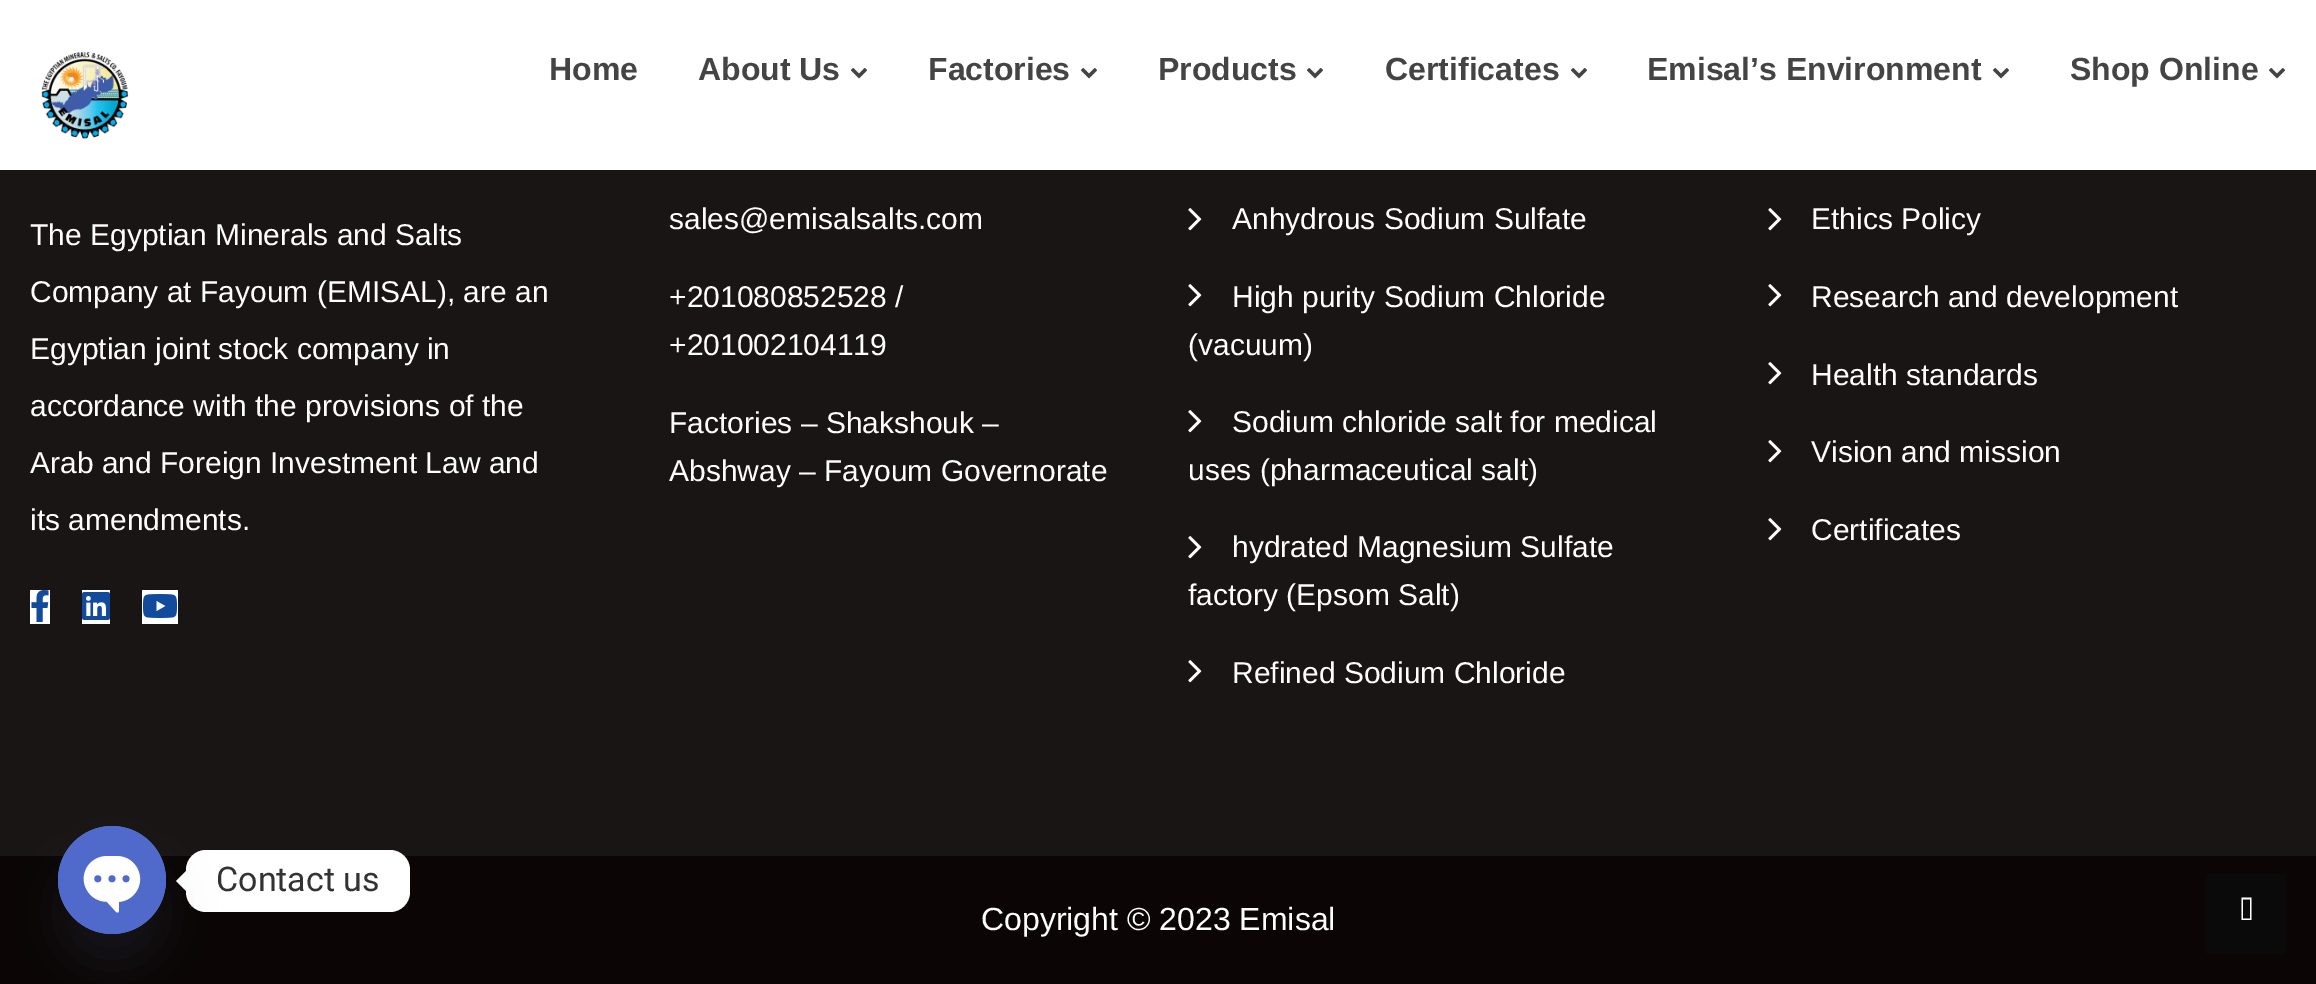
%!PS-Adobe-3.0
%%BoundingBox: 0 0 2316 984
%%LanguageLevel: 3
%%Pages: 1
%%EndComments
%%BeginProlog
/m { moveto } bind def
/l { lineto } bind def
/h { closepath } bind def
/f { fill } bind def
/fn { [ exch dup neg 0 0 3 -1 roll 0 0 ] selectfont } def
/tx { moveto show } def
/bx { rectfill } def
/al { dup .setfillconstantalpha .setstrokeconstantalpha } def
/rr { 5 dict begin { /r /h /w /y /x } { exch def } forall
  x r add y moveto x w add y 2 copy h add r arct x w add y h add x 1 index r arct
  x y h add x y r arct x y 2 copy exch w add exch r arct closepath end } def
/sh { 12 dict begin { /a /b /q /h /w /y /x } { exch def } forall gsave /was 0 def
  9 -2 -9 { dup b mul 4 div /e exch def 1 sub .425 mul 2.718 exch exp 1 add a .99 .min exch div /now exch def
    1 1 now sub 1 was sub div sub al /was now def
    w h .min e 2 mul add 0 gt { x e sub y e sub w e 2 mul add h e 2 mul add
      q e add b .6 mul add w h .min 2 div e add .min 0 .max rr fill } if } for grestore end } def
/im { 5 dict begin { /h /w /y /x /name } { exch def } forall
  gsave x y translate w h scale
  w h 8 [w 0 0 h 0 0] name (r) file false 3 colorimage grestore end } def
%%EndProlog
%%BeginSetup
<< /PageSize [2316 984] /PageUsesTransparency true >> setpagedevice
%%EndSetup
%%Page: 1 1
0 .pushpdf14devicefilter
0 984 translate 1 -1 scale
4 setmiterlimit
0.098 0.082 0.078 setrgbcolor
0 0 2316 984 bx
1 setgray
0 0 2316 170 bx
(image0.raw) 41 51 88 88 im
/LiberationSans-Bold 32 fn
0.267 setgray
(Home) 549 80 tx
(About Us) 698 80 tx
(image1.raw) 850 68 18 11 im
(Factories) 928 80 tx
(image1.raw) 1080 68 18 11 im
(Products) 1158 80 tx
(image1.raw) 1306 68 18 11 im
(Certificates) 1385 80 tx
(image1.raw) 1570 68 18 11 im
(Emisal’s Environment) 1647 80 tx
(image1.raw) 1992 68 18 11 im
(Shop Online) 2070 80 tx
(image1.raw) 2268 68 18 11 im
/LiberationSans-Regular 30 fn
1 setgray
(The Egyptian Minerals and Salts) 30 245 tx
(Company at Fayoum \(EMISAL\), are an) 30 302 tx
(Egyptian joint stock company in) 30 359 tx
(accordance with the provisions of the) 30 416 tx
(Arab and Foreign Investment Law and) 30 473 tx
(its amendments.) 30 530 tx
30 590 20 34 bx
(image2.raw) 31 590 18 32 im
82 590 28 34 bx
(image3.raw) 82 592 28 28 im
142 590 36 34 bx
(image4.raw) 142 594 36 24 im
(sales@emisalsalts.com) 669 229 tx
(+201080852528 /) 669 307 tx
(+201002104119) 669 355 tx
(Factories – Shakshouk –) 669 433 tx
(Abshway – Fayoum Governorate) 669 481 tx
(image5.raw) 1188 208 14 23 im
(Anhydrous Sodium Sulfate) 1232 229 tx
(image5.raw) 1188 284 14 23 im
(High purity Sodium Chloride) 1232 307 tx
(\(vacuum\)) 1188 355 tx
(image5.raw) 1188 410 14 23 im
(Sodium chloride salt for medical) 1232 432 tx
(uses \(pharmaceutical salt\)) 1188 480 tx
(image5.raw) 1188 536 14 23 im
(hydrated Magnesium Sulfate) 1232 557 tx
(factory \(Epsom Salt\)) 1188 605 tx
(image5.raw) 1188 660 14 23 im
(Refined Sodium Chloride) 1232 683 tx
(image5.raw) 1768 208 14 23 im
(Ethics Policy) 1811 229 tx
(image5.raw) 1768 284 14 23 im
(Research and development) 1811 307 tx
(image5.raw) 1768 362 14 23 im
(Health standards) 1811 385 tx
(image5.raw) 1768 440 14 23 im
(Vision and mission) 1811 462 tx
(image5.raw) 1768 518 14 23 im
(Certificates) 1811 540 tx
0.043 0.02 0.02 setrgbcolor
0 856 2316 128 bx
/LiberationSans-Regular 32 fn
1 setgray
(Copyright © 2023 Emisal) 981 930 tx
186 850 224 62 20 rr f
186 871 m 186 891 l 176 881 l h f
0.286 0.408 0.494 setrgbcolor
58 858 108 108 54 24 0.16 sh
(image6.raw) 58 826 108 108 im
/Roboto-Regular 34 fn
0.2 setgray
(Contact us) 216 891 tx
0.039 setgray
2206 874 80 80 bx
1 setgray
2243 918.5 m 2250 918.5 l 2250 899.5 l 2243 899.5 l h 2241.5 920 m 2241.5 897.5 l 2251.5 897.5 l 2251.5 920 l h f
.poppdf14devicefilter showpage
%%EOF
